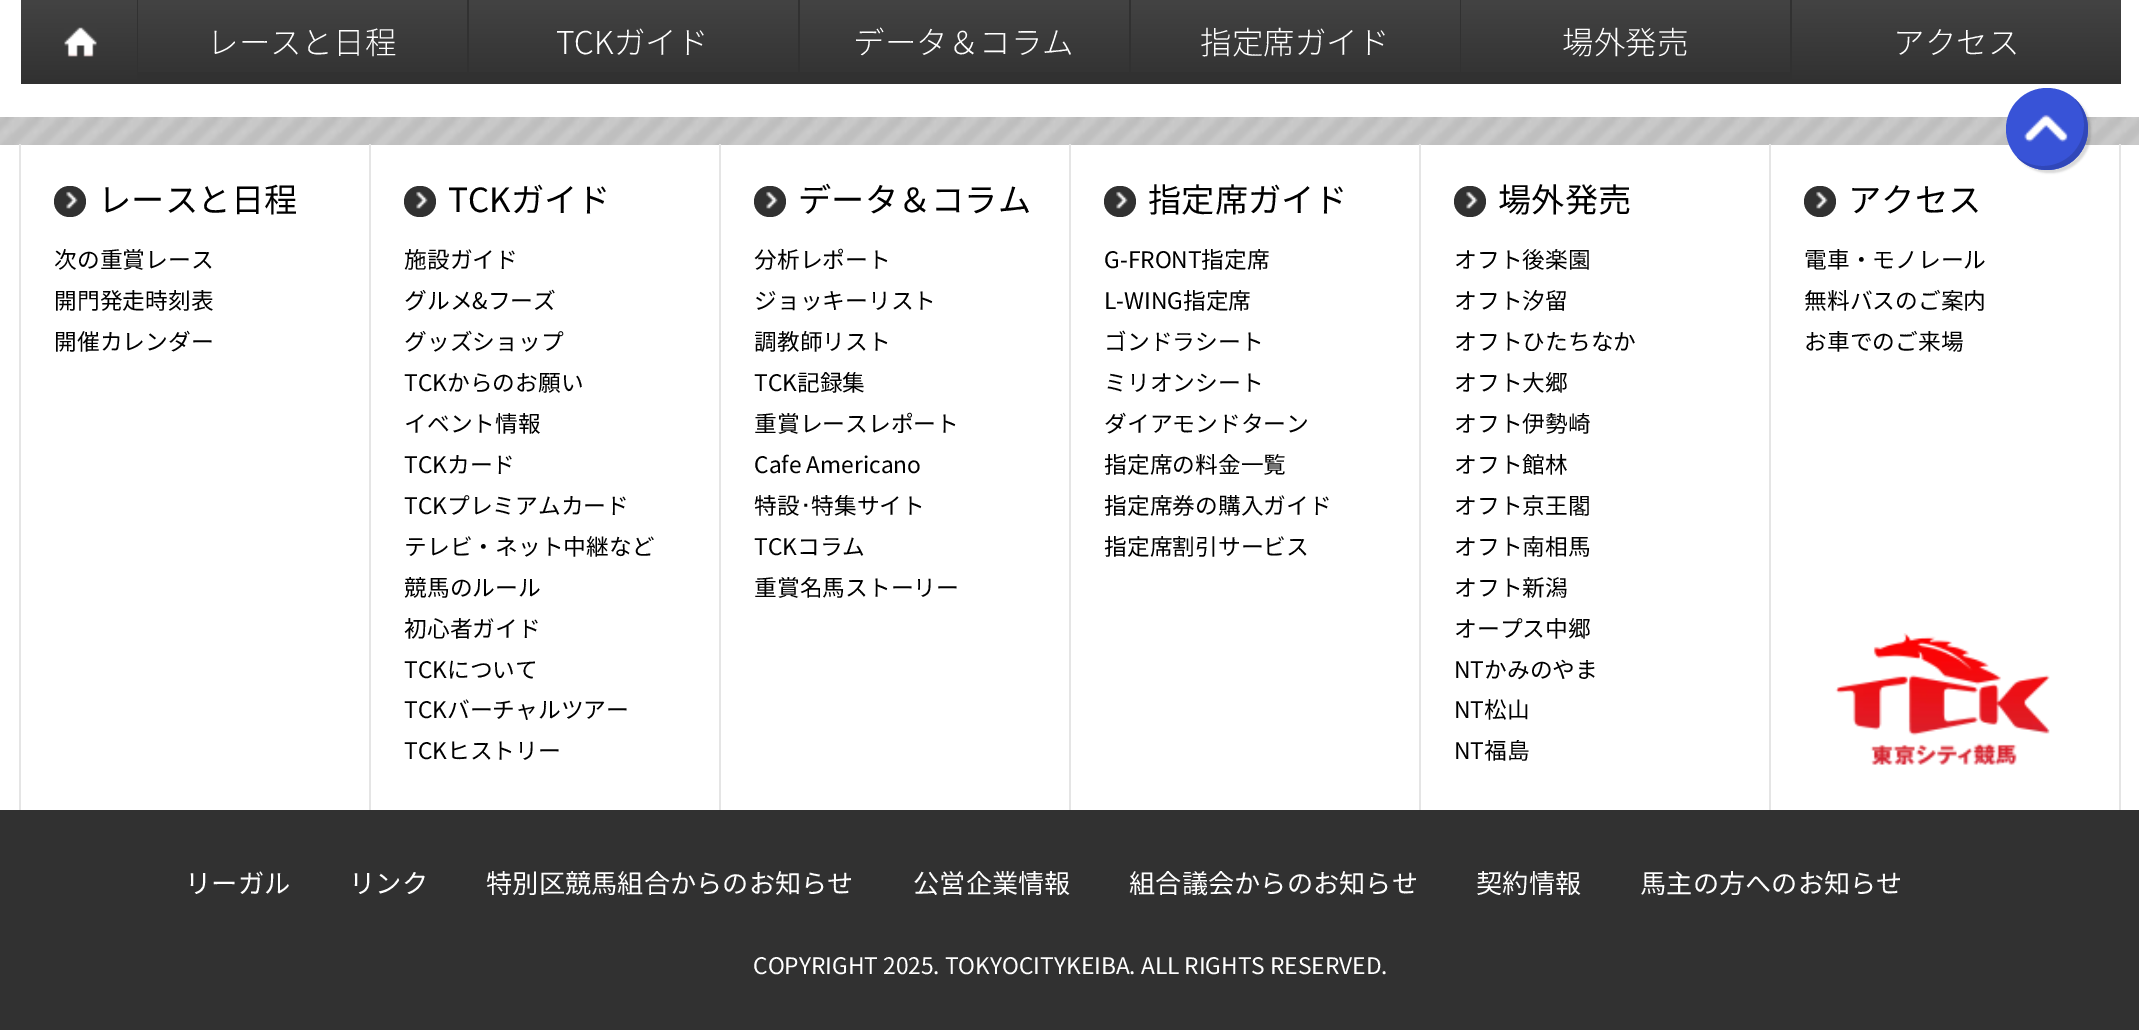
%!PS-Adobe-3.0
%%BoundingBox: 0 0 2139 1030
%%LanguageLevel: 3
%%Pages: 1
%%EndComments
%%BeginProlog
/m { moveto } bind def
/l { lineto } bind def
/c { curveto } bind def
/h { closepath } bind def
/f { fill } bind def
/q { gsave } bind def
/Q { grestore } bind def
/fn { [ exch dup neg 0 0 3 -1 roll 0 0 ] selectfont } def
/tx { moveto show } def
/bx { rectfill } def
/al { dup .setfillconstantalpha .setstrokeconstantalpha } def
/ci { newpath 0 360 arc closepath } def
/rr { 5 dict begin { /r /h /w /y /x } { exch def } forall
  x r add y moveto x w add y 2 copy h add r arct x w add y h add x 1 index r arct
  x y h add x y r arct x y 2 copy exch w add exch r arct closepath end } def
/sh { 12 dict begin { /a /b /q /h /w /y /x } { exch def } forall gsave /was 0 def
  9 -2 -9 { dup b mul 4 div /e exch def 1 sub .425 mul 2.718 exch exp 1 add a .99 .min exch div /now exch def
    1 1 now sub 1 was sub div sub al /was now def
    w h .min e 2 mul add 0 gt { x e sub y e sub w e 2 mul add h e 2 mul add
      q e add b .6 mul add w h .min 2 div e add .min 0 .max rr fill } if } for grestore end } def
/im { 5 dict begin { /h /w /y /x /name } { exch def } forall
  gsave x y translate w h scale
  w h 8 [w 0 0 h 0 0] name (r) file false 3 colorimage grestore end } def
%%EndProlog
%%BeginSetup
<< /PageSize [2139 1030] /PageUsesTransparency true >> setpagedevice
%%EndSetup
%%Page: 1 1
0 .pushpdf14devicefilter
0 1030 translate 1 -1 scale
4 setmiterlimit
1 setgray
0 0 2139 1030 bx
0.192 setgray
137 0 1655 84 bx
q 21 0 m 137 0 l 137 84 l 21 84 l h clip newpath
<< /ShadingType 2 /ColorSpace /DeviceRGB /Coords [79 0 79 84] /Extend [true true] /Function << /FunctionType 2 /Domain [0 1] /C0 [0.263 0.263 0.263] /C1 [0.192 0.192 0.192] /N 1 >> >> shfill Q
(image0.raw) 64 27 33 30 im
q 138 0 m 467 0 l 467 72 l 138 72 l h clip newpath
<< /ShadingType 2 /ColorSpace /DeviceRGB /Coords [303 0 303 84] /Extend [true true] /Function << /FunctionType 2 /Domain [0 1] /C0 [0.263 0.263 0.263] /C1 [0.192 0.192 0.192] /N 1 >> >> shfill Q
/NotoSansJP-Light 31.5 fn
1 setgray
(レースと日程) 207 54 tx
q 469 0 m 798 0 l 798 72 l 469 72 l h clip newpath
<< /ShadingType 2 /ColorSpace /DeviceRGB /Coords [634 0 634 84] /Extend [true true] /Function << /FunctionType 2 /Domain [0 1] /C0 [0.263 0.263 0.263] /C1 [0.192 0.192 0.192] /N 1 >> >> shfill Q
(TCKガイド) 556 54 tx
q 800 0 m 1129 0 l 1129 72 l 800 72 l h clip newpath
<< /ShadingType 2 /ColorSpace /DeviceRGB /Coords [964 0 964 84] /Extend [true true] /Function << /FunctionType 2 /Domain [0 1] /C0 [0.263 0.263 0.263] /C1 [0.192 0.192 0.192] /N 1 >> >> shfill Q
(データ＆コラム) 853 54 tx
q 1131 0 m 1460 0 l 1460 72 l 1131 72 l h clip newpath
<< /ShadingType 2 /ColorSpace /DeviceRGB /Coords [1295 0 1295 84] /Extend [true true] /Function << /FunctionType 2 /Domain [0 1] /C0 [0.263 0.263 0.263] /C1 [0.192 0.192 0.192] /N 1 >> >> shfill Q
(指定席ガイド) 1200 54 tx
q 1461 0 m 1790 0 l 1790 72 l 1461 72 l h clip newpath
<< /ShadingType 2 /ColorSpace /DeviceRGB /Coords [1626 0 1626 84] /Extend [true true] /Function << /FunctionType 2 /Domain [0 1] /C0 [0.263 0.263 0.263] /C1 [0.192 0.192 0.192] /N 1 >> >> shfill Q
(場外発売) 1562 54 tx
q 1792 0 m 2121 0 l 2121 84 l 1792 84 l h clip newpath
<< /ShadingType 2 /ColorSpace /DeviceRGB /Coords [1957 0 1957 84] /Extend [true true] /Function << /FunctionType 2 /Domain [0 1] /C0 [0.263 0.263 0.263] /C1 [0.192 0.192 0.192] /N 1 >> >> shfill Q
(アクセス) 1893 54 tx
(image1.raw) 0 117 2139 28 im
0 setgray
2009 91 82 82 41 1 0.15 sh
0.22 0.325 0.843 setrgbcolor
2047 129 41 ci f
(image2.raw) 2024 114 44 28 im
0.188 0.278 0.725 setrgbcolor
2017 157 m 2032 174 2060 174 2076 158 c 2092 142 2092 115 2075 99 c 2088 115 2087 139 2072 154 c 2057 169 2033 170 2017 157 c h f
0.898 setgray
2119 144 2 666 bx
19 144 2 666 bx
0.192 setgray
54 186 32 31 15.5 rr f
(image3.raw) 66 191 12 18 im
/NotoSansJP-Regular 33.25 fn
0 setgray
(レースと日程) 98 212 tx
/NotoSansJP-Regular 22.75 fn
(次の重賞レース) 54 268 tx
(開門発走時刻表) 54 309 tx
(開催カレンダー) 54 350 tx
0.898 setgray
369 144 2 666 bx
0.192 setgray
404 186 32 31 15.5 rr f
(image3.raw) 416 191 12 18 im
/NotoSansJP-Regular 33.25 fn
0 setgray
(TCKガイド) 448 212 tx
/NotoSansJP-Regular 22.75 fn
(施設ガイド) 404 268 tx
(グルメ&フーズ) 404 309 tx
(グッズショップ) 404 350 tx
(TCKからのお願い) 404 391 tx
(イベント情報) 404 432 tx
(TCKカード) 404 473 tx
(TCKプレミアムカード) 404 514 tx
(テレビ・ネット中継など) 404 555 tx
(競馬のルール) 404 596 tx
(初心者ガイド) 404 637 tx
(TCKについて) 404 678 tx
(TCKバーチャルツアー) 404 718 tx
(TCKヒストリー) 404 759 tx
0.898 setgray
719 144 2 666 bx
0.192 setgray
754 186 32 31 15.5 rr f
(image3.raw) 766 191 12 18 im
/NotoSansJP-Regular 33.25 fn
0 setgray
(データ＆コラム) 798 212 tx
/NotoSansJP-Regular 22.75 fn
(分析レポート) 754 268 tx
(ジョッキーリスト) 754 309 tx
(調教師リスト) 754 350 tx
(TCK記録集) 754 391 tx
(重賞レースレポート) 754 432 tx
(Cafe Americano) 754 473 tx
(特設) 754 514 tx
/IPAPGothic-Regular 22.75 fn
(･) 800 514 tx
/NotoSansJP-Regular 22.75 fn
(特集サイト) 811 514 tx
(TCKコラム) 754 555 tx
(重賞名馬ストーリー) 754 596 tx
0.898 setgray
1069 144 2 666 bx
0.192 setgray
1104 186 32 31 15.5 rr f
(image3.raw) 1116 191 12 18 im
/NotoSansJP-Regular 33.25 fn
0 setgray
(指定席ガイド) 1148 212 tx
/NotoSansJP-Regular 22.75 fn
(G-FRONT指定席) 1104 268 tx
(L-WING指定席) 1104 309 tx
(ゴンドラシート) 1104 350 tx
(ミリオンシート) 1104 391 tx
(ダイアモンドターン) 1104 432 tx
(指定席の料金一覧) 1104 473 tx
(指定席券の購入ガイド) 1104 514 tx
(指定席割引サービス) 1104 555 tx
0.898 setgray
1419 144 2 666 bx
0.192 setgray
1454 186 32 31 15.5 rr f
(image3.raw) 1466 191 12 18 im
/NotoSansJP-Regular 33.25 fn
0 setgray
(場外発売) 1498 212 tx
/NotoSansJP-Regular 22.75 fn
(オフト後楽園) 1454 268 tx
(オフト汐留) 1454 309 tx
(オフトひたちなか) 1454 350 tx
(オフト大郷) 1454 391 tx
(オフト伊勢崎) 1454 432 tx
(オフト館林) 1454 473 tx
(オフト京王閣) 1454 514 tx
(オフト南相馬) 1454 555 tx
(オフト新潟) 1454 596 tx
(オープス中郷) 1454 637 tx
(NTかみのやま) 1454 678 tx
(NT松山) 1454 718 tx
(NT福島) 1454 759 tx
0.898 setgray
1769 144 2 666 bx
0.192 setgray
1804 186 32 31 15.5 rr f
(image3.raw) 1816 191 12 18 im
/NotoSansJP-Regular 33.25 fn
0 setgray
(アクセス) 1848 212 tx
/NotoSansJP-Regular 22.75 fn
(電車・モノレール) 1804 268 tx
(無料バスのご案内) 1804 309 tx
(お車でのご来場) 1804 350 tx
0.192 setgray
0 810 2139 220 bx
/NotoSansJP-Regular 26.25 fn
1 setgray
(リーガル) 185 893 tx
(リンク) 349 893 tx
(特別区競馬組合からのお知らせ) 486 893 tx
(公営企業情報) 913 893 tx
(組合議会からのお知らせ) 1129 893 tx
(契約情報) 1476 893 tx
(馬主の方へのお知らせ) 1640 893 tx
(image4.raw) 1835 633 215 132 im
/NotoSansJP-Regular 22.75 fn
(COPYRIGHT 2025. TOKYOCITYKEIBA. ALL RIGHTS RESERVED.) 753 974 tx
.poppdf14devicefilter showpage
%%EOF
